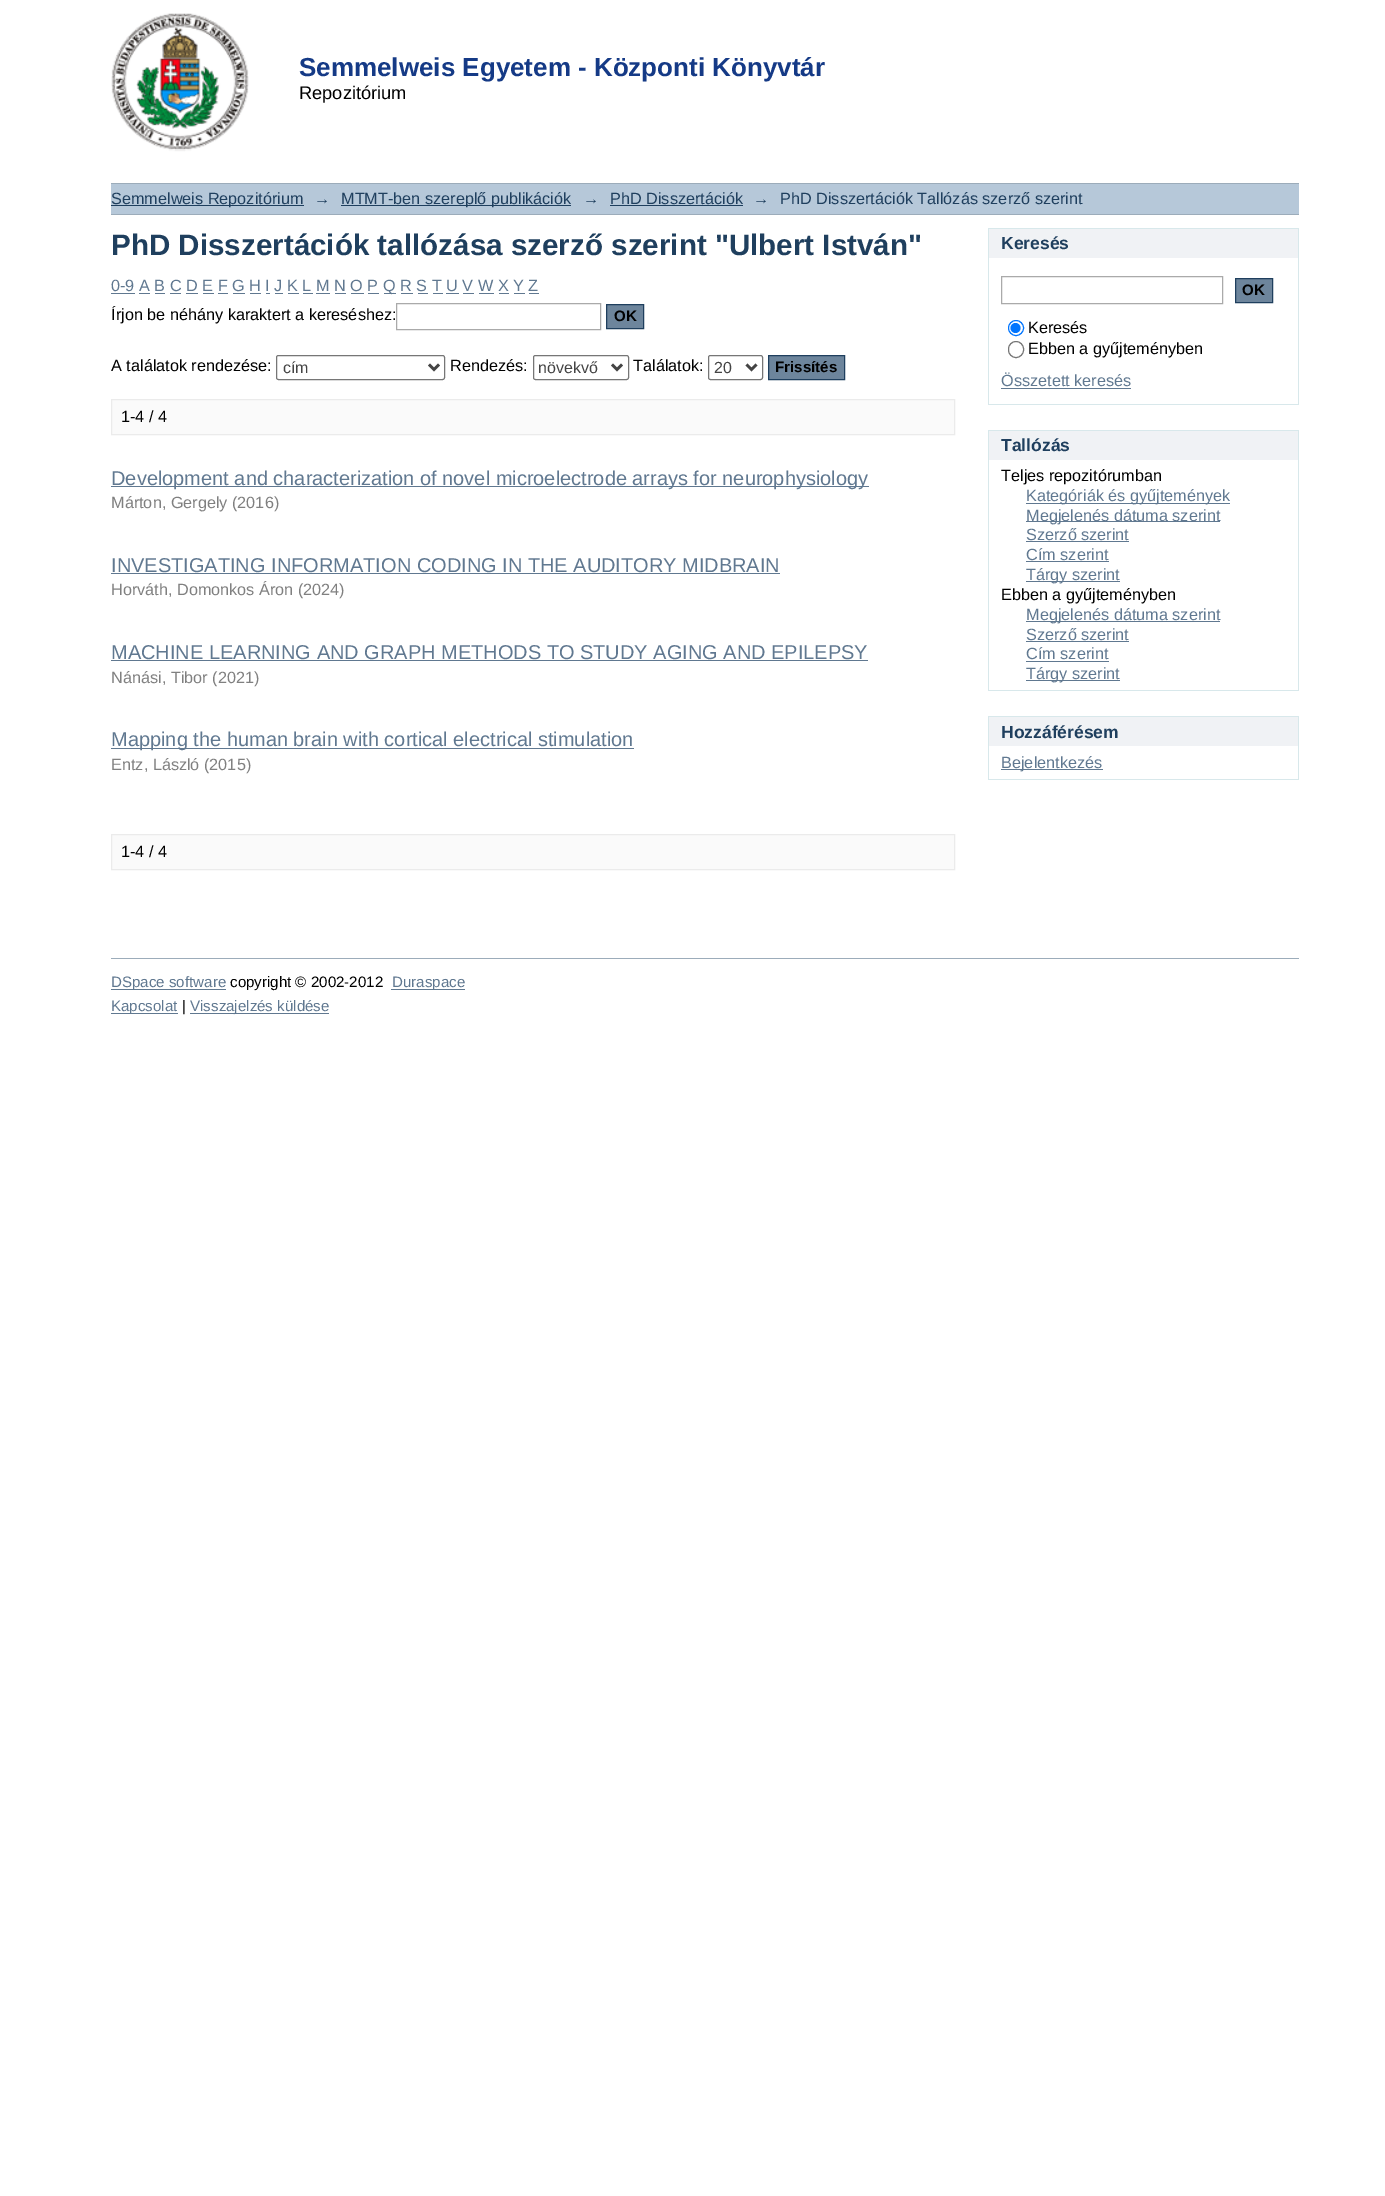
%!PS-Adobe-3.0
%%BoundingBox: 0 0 1385 2196
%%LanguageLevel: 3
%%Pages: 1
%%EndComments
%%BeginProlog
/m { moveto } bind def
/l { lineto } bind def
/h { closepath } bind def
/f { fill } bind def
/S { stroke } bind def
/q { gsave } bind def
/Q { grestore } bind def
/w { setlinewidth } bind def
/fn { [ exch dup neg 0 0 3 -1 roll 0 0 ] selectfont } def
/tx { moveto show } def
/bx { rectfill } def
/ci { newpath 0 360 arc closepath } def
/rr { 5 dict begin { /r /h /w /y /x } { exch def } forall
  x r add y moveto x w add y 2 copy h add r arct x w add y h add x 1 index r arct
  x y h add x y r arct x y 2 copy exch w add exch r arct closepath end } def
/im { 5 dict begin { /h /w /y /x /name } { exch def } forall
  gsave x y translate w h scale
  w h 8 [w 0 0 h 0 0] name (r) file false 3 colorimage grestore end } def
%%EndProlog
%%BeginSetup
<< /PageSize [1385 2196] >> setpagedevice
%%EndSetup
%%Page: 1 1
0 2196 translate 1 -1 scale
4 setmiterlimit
1 setgray
0 0 1385 2196 bx
(image0.raw) 111 13 138 139 im
/LiberationSans-Bold 26 fn
0.082 0.227 0.525 setrgbcolor
(Semmelweis Egyetem - Központi Könyvtár) 299 76 tx
/LiberationSans-Regular 18.25 fn
0 setgray
(Repozitórium) 299 99 tx
0.714 0.784 0.851 setrgbcolor
111 184 1188 30 bx
0.612 0.675 0.729 setrgbcolor
111 183 1188 1 bx
111 214 1188 1 bx
0.122 0.247 0.369 setrgbcolor
111 205 193 1 bx
/LiberationSans-Regular 16.25 fn
(Semmelweis Repozitórium) 111 204 tx
(→) 314 204 tx
341 205 230 1 bx
(MTMT-ben szereplő publikációk) 341 204 tx
(→) 583 204 tx
(PhD Disszertációk) 610 204 tx
610 205 133 1 bx
(→) 753 204 tx
(PhD Disszertációk Tallózás szerző szerint) 780 204 tx
/LiberationSans-Bold 29.6 fn
(PhD Disszertációk tallózása szerző szerint "Ulbert István") 111 255 tx
/LiberationSans-Regular 16.25 fn
0.376 0.471 0.565 setrgbcolor
(0-9 A B C D E F G H I J K L M N O P) 111 291 tx
111 293 24 1 bx
384 293 12 1 bx
(Q R S T U V W X Y Z) 383 291 tx
139 293 11 1 bx
155 293 10 1 bx
170 293 11 1 bx
186 293 12 1 bx
203 293 11 1 bx
218 293 10 1 bx
233 293 12 1 bx
250 293 11 1 bx
266 293 4 1 bx
275 293 8 1 bx
288 293 11 1 bx
303 293 10 1 bx
316 293 14 1 bx
335 293 11 1 bx
351 293 13 1 bx
368 293 11 1 bx
401 293 12 1 bx
418 293 10 1 bx
433 293 10 1 bx
446 293 13 1 bx
463 293 11 1 bx
479 293 15 1 bx
499 293 10 1 bx
514 293 11 1 bx
529 293 10 1 bx
0 setgray
(Írjon be néhány karaktert a kereséshez:) 111 320 tx
0.667 setgray
396.5 303.5 204 26 rectstroke
0.427 0.522 0.612 setrgbcolor
606.5 304.5 m 643.5 304.5 l 643.5 328.5 l 606.5 328.5 l h q f Q
0.122 0.247 0.369 setrgbcolor
S
/LiberationSans-Bold 15.1 fn
0 setgray
(OK) 614 321 tx
/LiberationSans-Regular 16.25 fn
(A találatok rendezése:) 111 371 tx
0.463 setgray
276.5 355.5 168 24 2 rr S
0.267 setgray
2.5 w
429 364.5 m 434 369.5 l 439 364.5 l S
/LiberationSans-Regular 16 fn
(cím) 283 373 tx
/LiberationSans-Regular 16.25 fn
0 setgray
(Rendezés:) 450 371 tx
0.463 setgray
1 w
533.5 355.5 95 24 2 rr S
0.267 setgray
2.5 w
612 364.5 m 617 369.5 l 622 364.5 l S
/LiberationSans-Regular 16 fn
(növekvő) 538 373 tx
/LiberationSans-Regular 16.25 fn
0 setgray
(Találatok:) 633 371 tx
0.463 setgray
1 w
708.5 355.5 54 24 2 rr S
0.267 setgray
2.5 w
746.5 364.5 m 751.5 369.5 l 756.5 364.5 l S
/LiberationSans-Regular 16 fn
(20) 714 373 tx
0.427 0.522 0.612 setrgbcolor
768.5 355.5 m 844.5 355.5 l 844.5 379.5 l 768.5 379.5 l h q f Q
0.122 0.247 0.369 setrgbcolor
1 w
S
/LiberationSans-Bold 15.1 fn
0 setgray
(Frissítés) 775 372 tx
0.98 setgray
111.5 399.5 m 954.5 399.5 l 954.5 434.5 l 111.5 434.5 l h q f Q
0.922 setgray
S
/LiberationSans-Regular 16.25 fn
0 setgray
(1-4 / 4) 121 422 tx
0.376 0.471 0.565 setrgbcolor
111 486 758 1 bx
/LiberationSans-Regular 20 fn
(Development and characterization of novel microelectrode arrays for neurophysiology) 111 485 tx
/LiberationSans-Regular 16.25 fn
0.502 setgray
(Márton, Gergely \(2016\)) 111 508 tx
/LiberationSans-Regular 20 fn
0.376 0.471 0.565 setrgbcolor
(INVESTIGATING INFORMATION CODING IN THE AUDITORY MIDBRAIN) 111 572 tx
111 573 669 1 bx
/LiberationSans-Regular 16.25 fn
0.502 setgray
(Horváth, Domonkos Áron \(2024\)) 111 595 tx
/LiberationSans-Regular 20 fn
0.376 0.471 0.565 setrgbcolor
(MACHINE LEARNING AND GRAPH METHODS TO STUDY AGING AND EPILEPSY) 111 659 tx
111 660 757 1 bx
/LiberationSans-Regular 16.25 fn
0.502 setgray
(Nánási, Tibor \(2021\)) 111 683 tx
0.376 0.471 0.565 setrgbcolor
111 748 523 1 bx
/LiberationSans-Regular 20 fn
(Mapping the human brain with cortical electrical stimulation) 111 746 tx
/LiberationSans-Regular 16.25 fn
0.502 setgray
(Entz, László \(2015\)) 111 770 tx
0.98 setgray
111.5 834.5 m 954.5 834.5 l 954.5 869.5 l 111.5 869.5 l h q f Q
0.922 setgray
S
0 setgray
(1-4 / 4) 121 857 tx
0.941 0.949 0.961 setrgbcolor
989 229 309 29 bx
0.847 0.91 0.922 setrgbcolor
988 228 311 1 bx
1298 228 1 177 bx
988 228 1 30 bx
/LiberationSans-Bold 17.5 fn
0.122 0.247 0.369 setrgbcolor
(Keresés) 1001 249 tx
0.847 0.91 0.922 setrgbcolor
988 404 311 1 bx
988 258 1 147 bx
0.667 setgray
1001.5 276.5 221 27 rectstroke
0.427 0.522 0.612 setrgbcolor
1235.5 278.5 m 1272.5 278.5 l 1272.5 302.5 l 1235.5 302.5 l h q f Q
0.122 0.247 0.369 setrgbcolor
S
/LiberationSans-Bold 15.1 fn
0 setgray
(OK) 1242 295 tx
0 0.459 1 setrgbcolor
1016 328 7.5 ci S
1015.5 328 5 ci f
/LiberationSans-Regular 16.25 fn
0 setgray
(Keresés) 1028 333 tx
0.463 setgray
1008.5 341.5 15 16 7.5 rr S
0 setgray
(Ebben a gyűjteményben) 1028 354 tx
0.376 0.471 0.565 setrgbcolor
(Összetett keresés) 1001 386 tx
1001 388 130 1 bx
0.941 0.949 0.961 setrgbcolor
989 431 309 29 bx
0.847 0.91 0.922 setrgbcolor
988 430 311 1 bx
1298 430 1 261 bx
988 430 1 30 bx
/LiberationSans-Bold 17.5 fn
0.122 0.247 0.369 setrgbcolor
(Tallózás) 1001 451 tx
0.847 0.91 0.922 setrgbcolor
988 690 311 1 bx
988 460 1 231 bx
/LiberationSans-Regular 16.25 fn
0 setgray
(Teljes repozitórumban) 1001 481 tx
0.376 0.471 0.565 setrgbcolor
1026 503 204 1 bx
(Kategóriák és gyűjtemények) 1026 501 tx
1026 521 194 1 bx
(Megjelenés dátuma szerint) 1026 521 tx
(Szerző szerint) 1026 540 tx
1026 541 103 1 bx
(Cím szerint) 1026 560 tx
1026 561 83 1 bx
1026 581 94 1 bx
(Tárgy szerint) 1026 580 tx
0 setgray
(Ebben a gyűjteményben) 1001 600 tx
0.376 0.471 0.565 setrgbcolor
1026 621 194 1 bx
(Megjelenés dátuma szerint) 1026 620 tx
(Szerző szerint) 1026 640 tx
1026 641 103 1 bx
(Cím szerint) 1026 659 tx
1026 661 83 1 bx
1026 680 94 1 bx
(Tárgy szerint) 1026 679 tx
0.941 0.949 0.961 setrgbcolor
989 717 309 29 bx
0.847 0.91 0.922 setrgbcolor
988 716 311 1 bx
1298 716 1 64 bx
988 716 1 30 bx
/LiberationSans-Bold 17.5 fn
0.122 0.247 0.369 setrgbcolor
(Hozzáférésem) 1001 738 tx
0.847 0.91 0.922 setrgbcolor
988 779 311 1 bx
988 746 1 34 bx
0.376 0.471 0.565 setrgbcolor
1001 769 102 1 bx
/LiberationSans-Regular 16.25 fn
(Bejelentkezés) 1001 768 tx
0.612 0.675 0.729 setrgbcolor
111 958 1188 1 bx
0.376 0.471 0.565 setrgbcolor
111 989 115 1 bx
/LiberationSans-Regular 15.1 fn
(DSpace software) 111 987 tx
0 setgray
(copyright © 2002-2012) 230 987 tx
0.376 0.471 0.565 setrgbcolor
391 989 74 1 bx
(Duraspace) 392 987 tx
111 1013 67 1 bx
(Kapcsolat) 111 1011 tx
0 setgray
(|) 182 1011 tx
0.376 0.471 0.565 setrgbcolor
190 1013 139 1 bx
(Visszajelzés küldése) 190 1011 tx
showpage
%%EOF
